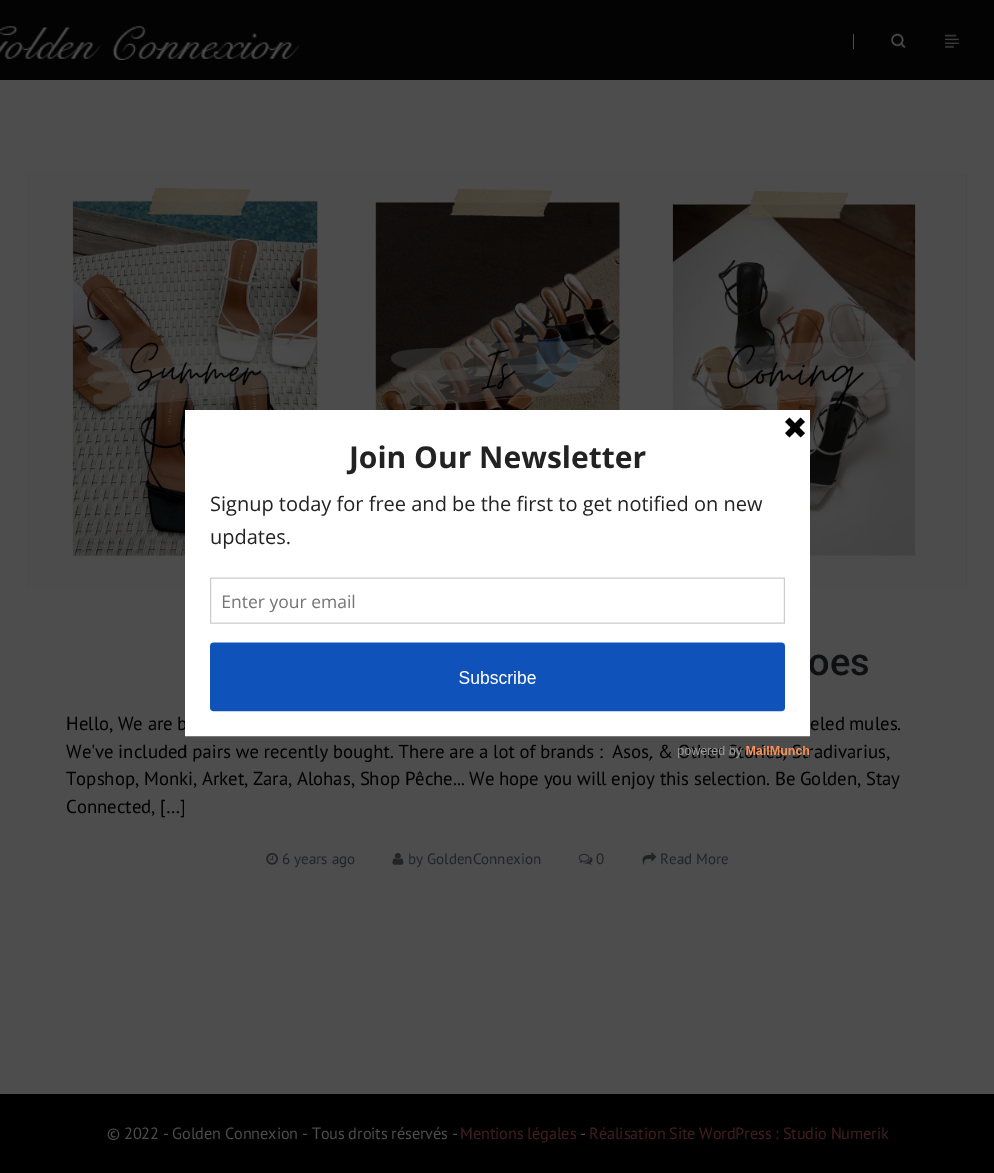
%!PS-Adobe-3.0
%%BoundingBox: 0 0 994 1173
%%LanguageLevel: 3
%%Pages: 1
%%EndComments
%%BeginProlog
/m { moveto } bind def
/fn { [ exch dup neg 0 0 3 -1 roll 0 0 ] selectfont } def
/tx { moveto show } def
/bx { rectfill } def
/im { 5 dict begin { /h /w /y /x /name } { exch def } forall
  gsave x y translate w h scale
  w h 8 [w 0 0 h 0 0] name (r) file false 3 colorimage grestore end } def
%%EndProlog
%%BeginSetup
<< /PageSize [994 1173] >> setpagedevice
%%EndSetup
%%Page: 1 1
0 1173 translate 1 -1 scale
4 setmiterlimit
0.302 setgray
0 0 994 1173 bx
(image4.raw) 28 174 939 413 im
/Roboto-Medium 38 fn
0.059 0.063 0.075 setrgbcolor
(oes) 808 675 tx
/PTSans-Regular 18.75 fn
0 setgray
66 730 m -0.4 0 32 (Hello, We are b) widthshow
66 758 m -0.4 0 32 (We've included pairs we recently bought. There are a lot of brands :  Asos, & Other Stories, Stradivarius,) widthshow
(image0.raw) 185 410 625 348 im
0.012 setgray
0 0 994 80 bx
(image1.raw) 0 26 300 34 im
0.302 setgray
853 34 1 15 bx
(image2.raw) 891 33 15 16 im
(image3.raw) 945 34 14 14 im
0 setgray
810 730 m -0.4 0 32 (eled mules.) widthshow
66 785 m -0.4 0 32 (Topshop, Monki, Arket, Zara, Alohas, Shop Pêche... We hope you will enjoy this selection. Be Golden, Stay) widthshow
66 813 m -0.4 0 32 (Connected, […]) widthshow
(image5.raw) 266 853 12 12 im
/PTSans-Regular 15 fn
0.133 0.137 0.149 setrgbcolor
(6 years ago) 282 864 tx
(image6.raw) 392 853 12 12 im
(by GoldenConnexion) 408 864 tx
(image7.raw) 578 853 15 12 im
(0) 596 864 tx
(image8.raw) 642 852 15 13 im
(Read More) 660 864 tx
0 setgray
0 1094 994 79 bx
/PTSans-Regular 16.25 fn
0.302 setgray
107 1139 m -0.4 0 32 -0.1 0 (© 2022 - Golden Connexion - Tous droits réservés -) awidthshow
0.259 0.122 0.122 setrgbcolor
460 1139 m -0.4 0 32 -0.1 0 (Mentions légales) awidthshow
0.302 setgray
580 1139 m -0.1 0 (-) ashow
0.259 0.122 0.122 setrgbcolor
589 1139 m -0.4 0 32 -0.1 0 (Réalisation Site WordPress : Studio Numerik) awidthshow
showpage
%%EOF
